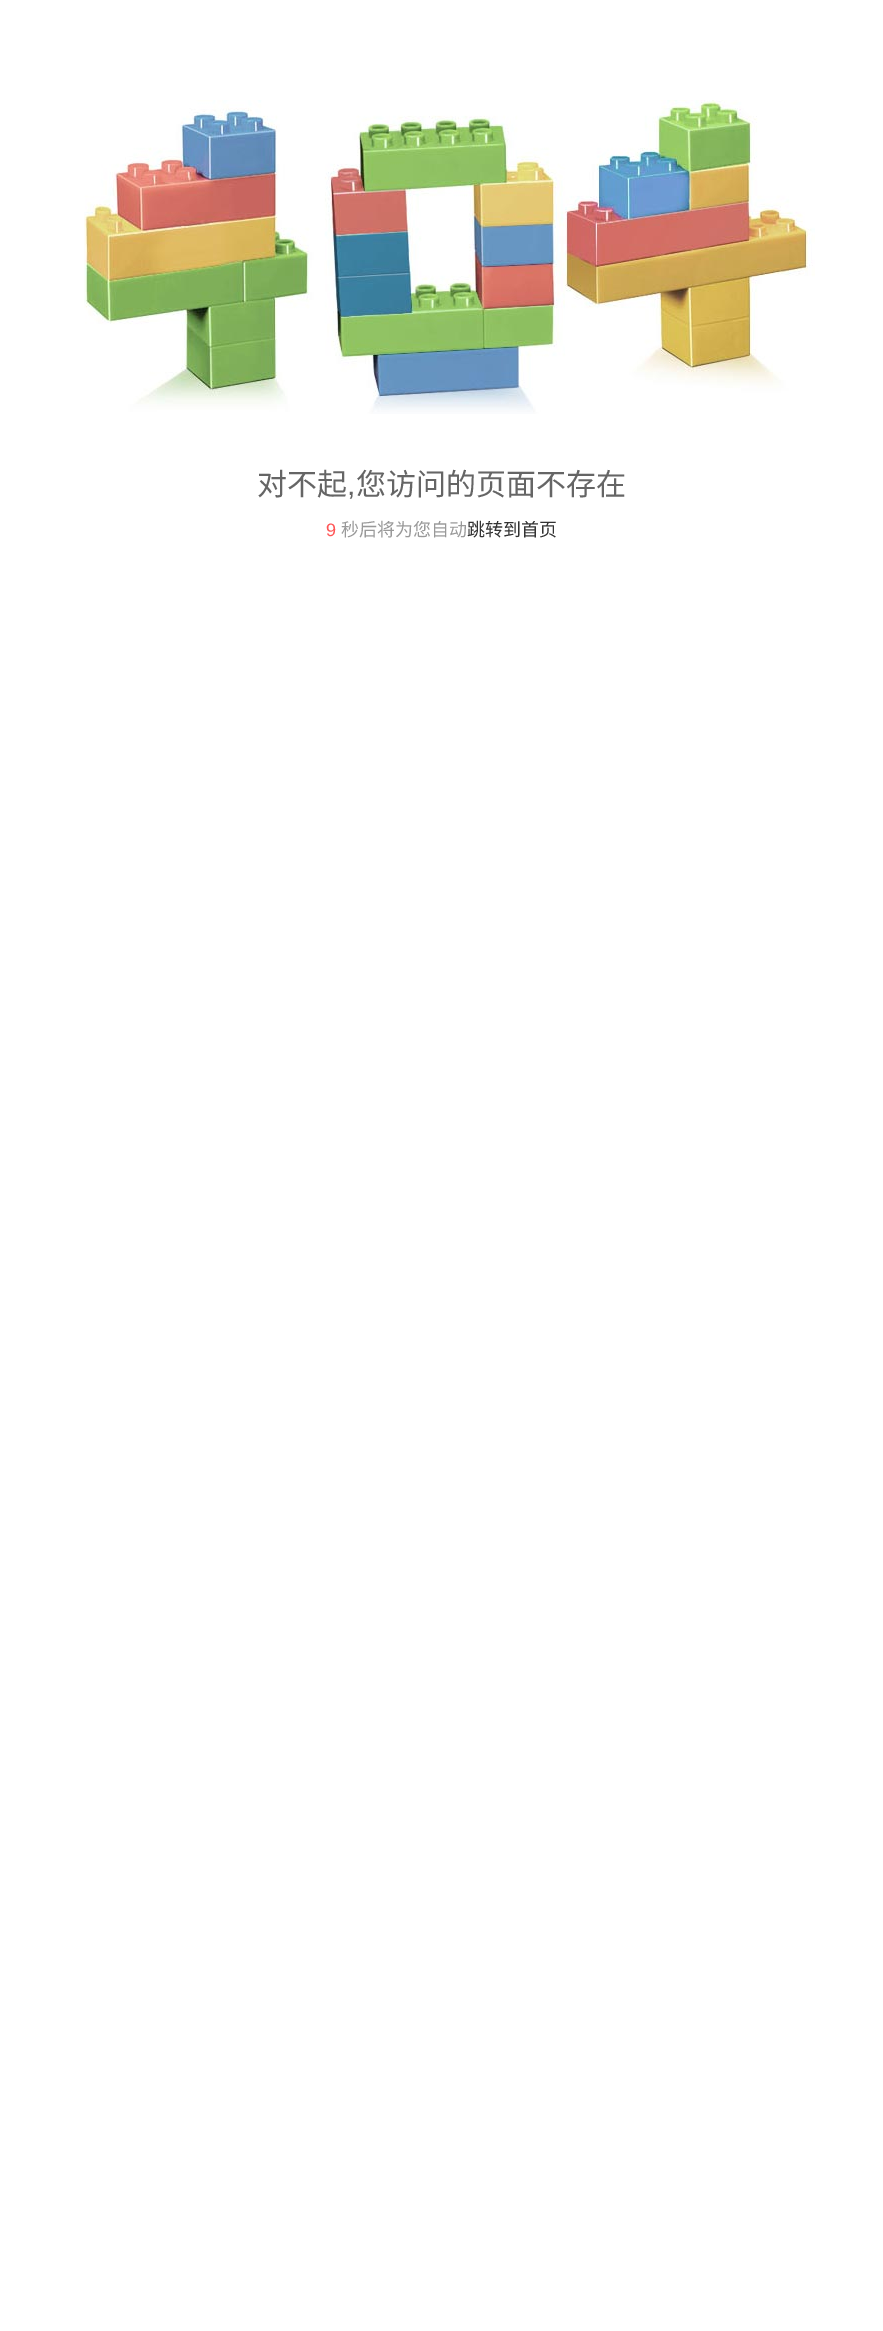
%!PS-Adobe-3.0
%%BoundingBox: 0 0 883 2331
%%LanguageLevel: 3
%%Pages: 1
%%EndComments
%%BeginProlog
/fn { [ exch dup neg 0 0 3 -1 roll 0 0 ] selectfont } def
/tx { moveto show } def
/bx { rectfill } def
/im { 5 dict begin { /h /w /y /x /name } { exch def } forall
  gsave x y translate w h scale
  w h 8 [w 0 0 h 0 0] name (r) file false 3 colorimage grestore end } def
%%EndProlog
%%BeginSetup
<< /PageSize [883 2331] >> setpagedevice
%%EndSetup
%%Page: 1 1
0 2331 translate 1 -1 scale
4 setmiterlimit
1 setgray
0 0 883 2331 bx
(image0.raw) 84 100 731 314 im
/NotoSansCJKSC-Regular 30 fn
0.396 setgray
(对不起) 257 495 tx
/LiberationSans-Regular 30 fn
(,) 347 495 tx
/NotoSansCJKSC-Regular 30 fn
(您访问的页面不存在) 356 495 tx
/LiberationSans-Regular 18 fn
1 0.333 0.337 setrgbcolor
(9) 326 536 tx
/NotoSansCJKSC-Regular 18 fn
0.6 setgray
(秒后将为您自动) 341 536 tx
0.2 setgray
(跳转到首页) 467 536 tx
showpage
%%EOF
